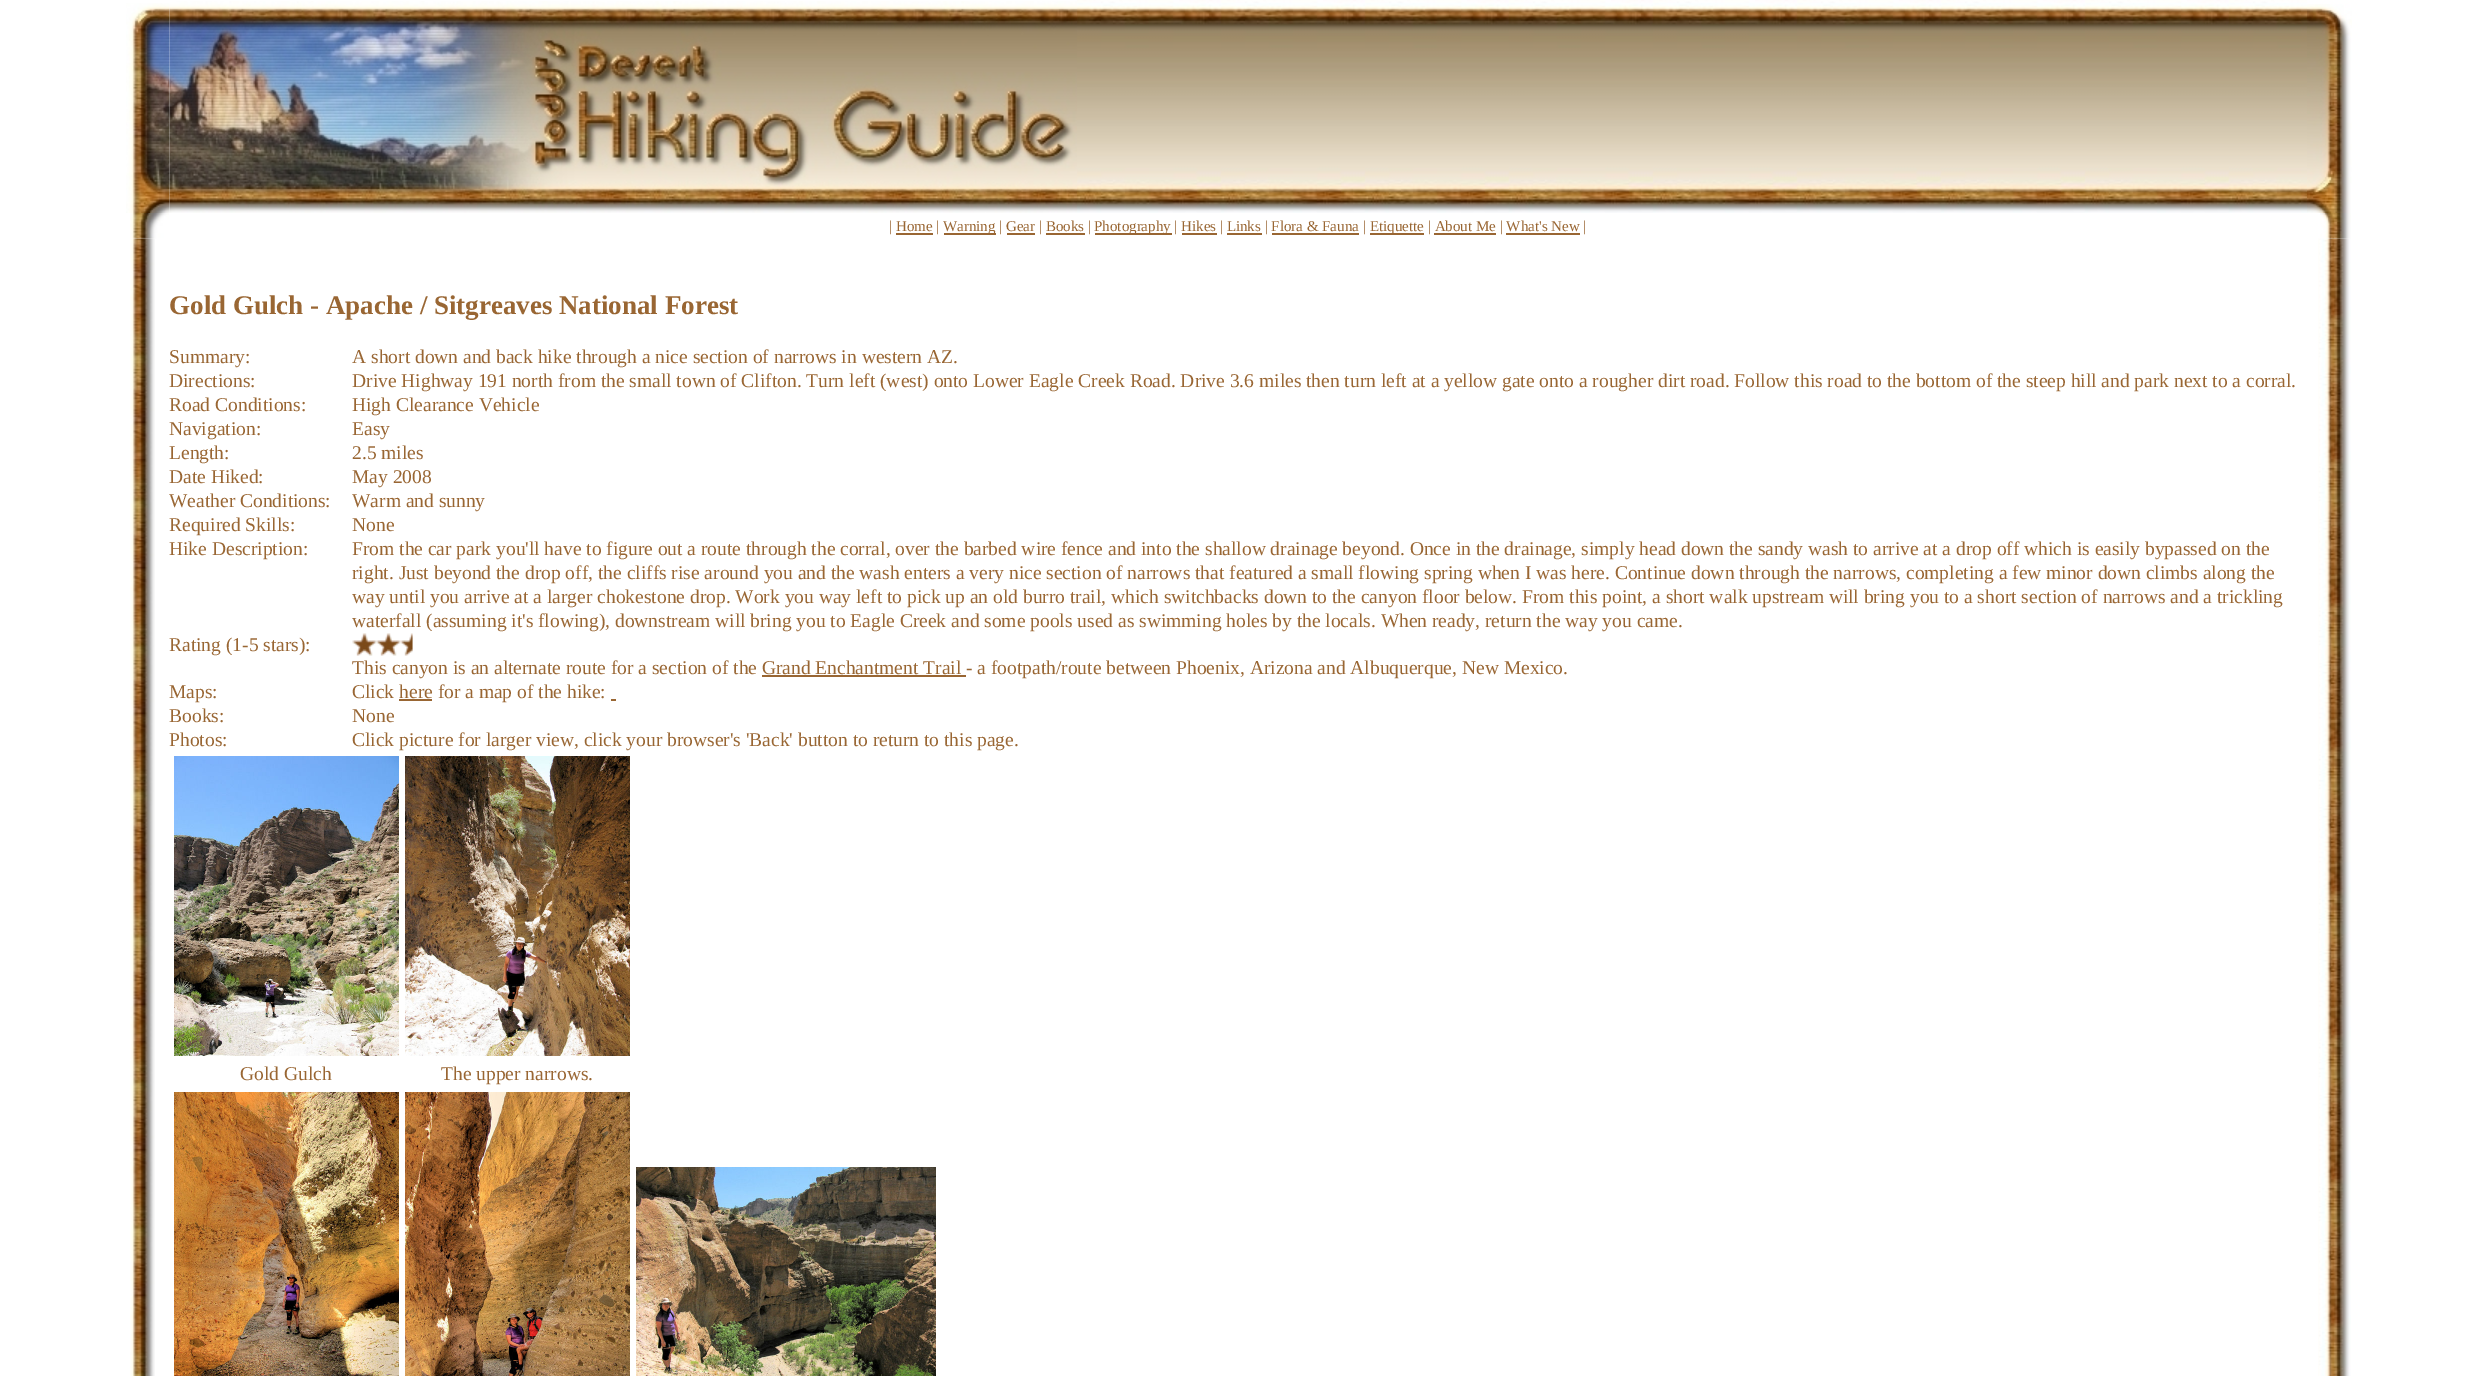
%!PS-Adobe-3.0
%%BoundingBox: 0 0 2475 1376
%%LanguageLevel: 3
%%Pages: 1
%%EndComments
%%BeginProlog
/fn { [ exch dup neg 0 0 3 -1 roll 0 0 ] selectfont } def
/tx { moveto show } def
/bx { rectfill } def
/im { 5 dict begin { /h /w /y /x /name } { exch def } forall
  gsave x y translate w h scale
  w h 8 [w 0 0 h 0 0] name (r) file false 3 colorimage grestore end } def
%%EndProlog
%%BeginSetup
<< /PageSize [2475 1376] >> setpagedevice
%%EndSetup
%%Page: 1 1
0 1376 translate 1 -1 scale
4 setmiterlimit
1 setgray
0 0 2475 1376 bx
(image0.raw) 126 3 44 210 im
(image1.raw) 169 1 908 212 im
(image2.raw) 1077 0 1230 213 im
(image3.raw) 2307 4 45 209 im
(image6.raw) 130 238 25 1138 im
(image4.raw) 130 213 39 26 im
/LiberationSerif-Regular 15 fn
0.6 0.4 0.2 setrgbcolor
(| Home |) 889 231 tx
896 233 37 2 bx
944 233 52 2 bx
(Warning | Gear | Books |) 943 231 tx
1007 233 28 2 bx
1046 233 39 2 bx
1095 233 77 2 bx
(Photography | Hikes | Links | Flora & Fauna |) 1094 231 tx
1182 233 35 2 bx
1227 233 35 2 bx
1272 233 87 2 bx
1370 233 54 2 bx
(Etiquette | About Me | What's New |) 1370 231 tx
1434 233 62 2 bx
1506 233 74 2 bx
(image15.raw) 2318 238 33 1138 im
(image5.raw) 2320 213 31 26 im
/LiberationSerif-Bold 27 fn
(Gold Gulch - Apache / Sitgreaves National Forest) 169 314 tx
/LiberationSerif-Regular 19.5 fn
(Summary:) 169 363 tx
(A short down and back hike through a nice section of narrows in western AZ.) 352 363 tx
(Directions:) 169 387 tx
(Drive Highway 191 north from the small town of Clifton. Turn left \(west\) onto Lower Eagle Creek Road. Drive 3.6 miles then turn left at a yellow gate onto a rougher dirt road. Follow this road to the bottom of the steep hill and park next to a corral.) 352 387 tx
(Road Conditions:) 169 411 tx
(High Clearance Vehicle) 352 411 tx
(Navigation:) 169 435 tx
(Easy) 352 435 tx
(Length:) 169 459 tx
(2.5 miles) 352 459 tx
(Date Hiked:) 169 483 tx
(May 2008) 352 483 tx
(Weather Conditions:) 169 507 tx
(Warm and sunny) 352 507 tx
(Required Skills:) 169 531 tx
(None) 352 531 tx
(Hike Description:) 169 555 tx
(From the car park you'll have to figure out a route through the corral, over the barbed wire fence and into the shallow drainage beyond. Once in the drainage, simply head down the sandy wash to arrive at a drop off which is easily bypassed on the) 352 555 tx
(right. Just beyond the drop off, the cliffs rise around you and the wash enters a very nice section of narrows that featured a small flowing spring when I was here. Continue down through the narrows, completing a few minor down climbs along the) 352 579 tx
(way until you arrive at a larger chokestone drop. Work you way left to pick up an old burro trail, which switchbacks down to the canyon floor below. From this point, a short walk upstream will bring you to a short section of narrows and a trickling) 352 603 tx
(waterfall \(assuming it's flowing\), downstream will bring you to Eagle Creek and some pools used as swimming holes by the locals. When ready, return the way you came.) 352 627 tx
(Rating \(1-5 stars\):) 169 651 tx
(image7.raw) 352 633 25 23 im
(image8.raw) 376 633 25 23 im
(image9.raw) 400 633 13 23 im
(This canyon is an alternate route for a section of the Grand Enchantment Trail - a footpath/route between Phoenix, Arizona and Albuquerque, New Mexico.) 352 674 tx
762 675 204 2 bx
(Maps:) 169 698 tx
(Click here for a map of the hike:) 352 698 tx
399 699 33 2 bx
611 699 5 2 bx
(Books:) 169 722 tx
(None) 352 722 tx
(Photos:) 169 746 tx
(Click picture for larger view, click your browser's 'Back' button to return to this page.) 352 746 tx
(image10.raw) 174 756 225 300 im
(image11.raw) 405 756 225 300 im
(Gold Gulch) 240 1080 tx
(The upper narrows.) 441 1080 tx
(image12.raw) 174 1092 225 284 im
(image13.raw) 405 1092 225 284 im
(image14.raw) 636 1167 300 209 im
showpage
%%EOF
